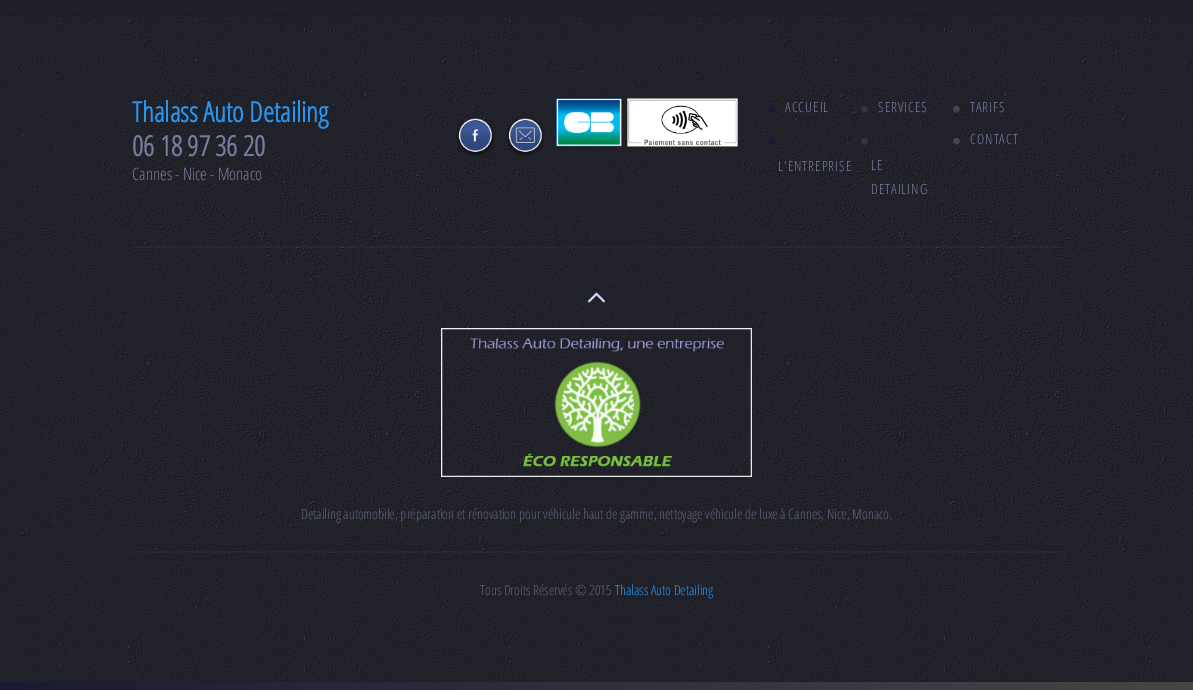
%!PS-Adobe-3.0
%%BoundingBox: 0 0 1193 690
%%LanguageLevel: 3
%%Pages: 1
%%EndComments
%%BeginProlog
/m { moveto } bind def
/l { lineto } bind def
/h { closepath } bind def
/q { gsave } bind def
/Q { grestore } bind def
/fn { [ exch dup neg 0 0 3 -1 roll 0 0 ] selectfont } def
/tx { moveto show } def
/bx { rectfill } def
/al { dup .setfillconstantalpha .setstrokeconstantalpha } def
/im { 5 dict begin { /h /w /y /x /name } { exch def } forall
  gsave x y translate w h scale
  w h 8 [w 0 0 h 0 0] name (r) file false 3 colorimage grestore end } def
%%EndProlog
%%BeginSetup
<< /PageSize [1193 690] /PageUsesTransparency true >> setpagedevice
%%EndSetup
%%Page: 1 1
0 .pushpdf14devicefilter
0 690 translate 1 -1 scale
4 setmiterlimit
0.125 0.125 0.161 setrgbcolor
0 0 1193 690 bx
q 0 14 m 1193 14 l 1193 16 l 0 16 l h clip newpath
<< /ShadingType 2 /ColorSpace /DeviceRGB /Coords [597 14 597 19] /Extend [true true] /Function << /FunctionType 2 /Domain [0 1] /C0 [0.114 0.114 0.145] /C1 [0.125 0.125 0.161] /N 1 >> >> shfill Q
(image0.raw) 0 14 1193 668 im
/OpenSansCondensed-Bold 28 fn
0.157 0.588 0.945 setrgbcolor
(Thalass Auto Detailing) 132 122 tx
0.482 0.482 0.624 setrgbcolor
(06 18 97 36 20) 132 156 tx
/OpenSansCondensed-Light 17 fn
(Cannes - Nice - Monaco) 132 180 tx
(image1.raw) 456 117 39 39 im
(image2.raw) 506 117 39 39 im
(image3.raw) 554 98 184 51 im
(image4.raw) 768 106 7 7 im
/OpenSansCondensed-Light 14 fn
785 112 m 1 0 (ACCUEIL) ashow
(image5.raw) 861 105 7 8 im
878 112 m 1 0 (SERVICES) ashow
(image6.raw) 953 105 7 8 im
970 112 m 1 0 (TARIFS) ashow
(image7.raw) 953 137 7 8 im
970 144 m 1 0 (CONTACT) ashow
(image8.raw) 768 138 7 7 im
778 171 m 1 0 (L'ENTREPRISE) ashow
(image9.raw) 861 137 7 8 im
871 170 m 1 0 (LE) ashow
871 194 m 1 0 (DETAILING) ashow
0.03 al
0.902 0.925 1 setrgbcolor
132 246 930 2 bx
1 al
(image10.raw) 588 292 17 11 im
(image11.raw) 441 328 311 149 im
0.376 0.376 0.486 setrgbcolor
(Detailing automobile, préparation et rénovation pour véhicule haut de gamme, nettoyage véhicule de luxe à Cannes, Nice, Monaco.) 301 519 tx
0.03 al
0.902 0.925 1 setrgbcolor
132 551 930 2 bx
1 al
0.376 0.376 0.486 setrgbcolor
(Tous Droits Réservés © 2015) 480 595 tx
0.157 0.588 0.945 setrgbcolor
(Thalass Auto Detailing) 615 595 tx
q 0 682 m 1193 682 l 1193 690 l 0 690 l h clip newpath
<< /ShadingType 2 /ColorSpace /DeviceRGB /Coords [0 686 1193 686] /Extend [true true] /Function << /FunctionType 2 /Domain [0 1] /C0 [0.106 0.102 0.204] /C1 [0.275 0.275 0.275] /N 1 >> >> shfill Q
.poppdf14devicefilter showpage
%%EOF
